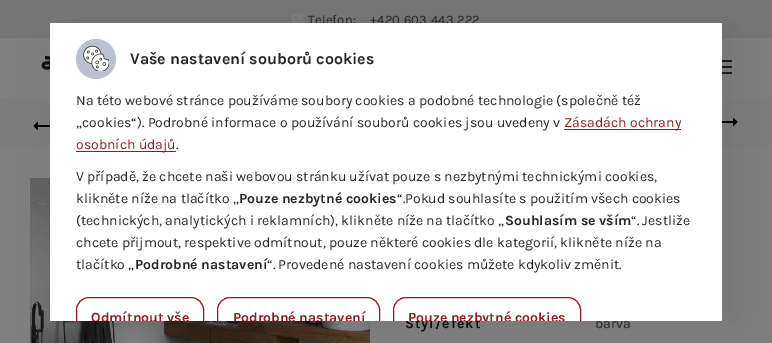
%!PS-Adobe-3.0
%%BoundingBox: 0 0 772 343
%%LanguageLevel: 3
%%Pages: 1
%%EndComments
%%BeginProlog
/m { moveto } bind def
/f { fill } bind def
/S { stroke } bind def
/q { gsave } bind def
/Q { grestore } bind def
/fn { [ exch dup neg 0 0 3 -1 roll 0 0 ] selectfont } def
/tx { moveto show } def
/bx { rectfill } def
/al { dup .setfillconstantalpha .setstrokeconstantalpha } def
/ci { newpath 0 360 arc closepath } def
/rr { 5 dict begin { /r /h /w /y /x } { exch def } forall
  x r add y moveto x w add y 2 copy h add r arct x w add y h add x 1 index r arct
  x y h add x y r arct x y 2 copy exch w add exch r arct closepath end } def
/sh { 12 dict begin { /a /b /q /h /w /y /x } { exch def } forall gsave /was 0 def
  9 -2 -9 { dup b mul 4 div /e exch def 1 sub .425 mul 2.718 exch exp 1 add a .99 .min exch div /now exch def
    1 1 now sub 1 was sub div sub al /was now def
    w h .min e 2 mul add 0 gt { x e sub y e sub w e 2 mul add h e 2 mul add
      q e add b .6 mul add w h .min 2 div e add .min 0 .max rr fill } if } for grestore end } def
/im { 5 dict begin { /h /w /y /x /name } { exch def } forall
  gsave x y translate w h scale
  w h 8 [w 0 0 h 0 0] name (r) file false 3 colorimage grestore end } def
%%EndProlog
%%BeginSetup
<< /PageSize [772 343] /PageUsesTransparency true >> setpagedevice
%%EndSetup
%%Page: 1 1
0 .pushpdf14devicefilter
0 343 translate 1 -1 scale
4 setmiterlimit
0.502 setgray
0 0 772 343 bx
0.463 setgray
0 0 772 37 bx
0.439 setgray
0 37 772 1 bx
(image0.raw) 292 13 12 10 im
/Karla-Regular 13 fn
0.149 setgray
308 24 m 0.25 0 (Telefon:) ashow
370 24 m 0.25 0 (+420 603 443 222) ashow
(image1.raw) 41 55 9 15 im
0.102 setgray
714 66 18 2 bx
714 60 18 2 bx
714 72 18 2 bx
0.49 setgray
0 98 772 50 bx
0 setgray
37 125 13 2 bx
(image2.raw) 33 121 5 9 im
722 121 12 2 bx
(image3.raw) 733 117 5 9 im
(image4.raw) 30 178 340 165 im
/Karla-Bold 14 fn
0.055 0.051 0.051 setrgbcolor
405 328 m 1 0 (Styl/efekt) ashow
/Karla-Regular 14 fn
0.149 setgray
(barva) 595 328 tx
0 setgray
66 23 672 298 0 25 0.09 sh
1 setgray
50 23 672 298 bx
0.733 0.757 0.808 setrgbcolor
96 59 20 ci f
(image5.raw) 83 45 26 26 im
/Karla-Bold 16 fn
0.149 setgray
(Vaše nastavení souborů cookies) 130 64 tx
/Karla-Regular 14 fn
(Na této webové stránce používáme soubory cookies a podobné technologie \(společně též) 76 105 tx
(„cookies“\). Podrobné informace o používání souborů cookies jsou uvedeny v) 76 127 tx
0.576 0.102 0.133 setrgbcolor
564 129 117 1 bx
(Zásadách ochrany) 564 127 tx
76 151 100 1 bx
(osobních údajů) 76 149 tx
0.149 setgray
(.) 176 149 tx
(V případě, že chcete naši webovou stránku užívat pouze s nezbytnými technickými cookies,) 76 181 tx
(klikněte níže na tlačítko „) 76 203 tx
/Karla-Bold 14 fn
(Pouze nezbytné cookies) 239 203 tx
/Karla-Regular 14 fn
(“.Pokud souhlasíte s použitím všech cookies) 397 203 tx
(\(technických, analytických i reklamních\), klikněte níže na tlačítko „) 76 225 tx
/Karla-Bold 14 fn
(Souhlasím se vším) 505 225 tx
/Karla-Regular 14 fn
(“. Jestliže) 631 225 tx
(chcete přijmout, respektive odmítnout, pouze některé cookies dle kategorií, klikněte níže na) 76 247 tx
(tlačítko „) 76 269 tx
/Karla-Bold 14 fn
(Podrobné nastavení) 135 269 tx
/Karla-Regular 14 fn
(“. Provedené nastavení cookies můžete kdykoliv změnit.) 267 269 tx
q
50 23 672 298 rectclip
0.576 0.102 0.133 setrgbcolor
76.5 297.5 127 43 12.5 rr S
/Karla-Bold 14 fn
(Odmítnout vše) 91 322 tx
217.5 297.5 162 43 12.5 rr S
(Podrobné nastavení) 233 322 tx
393.5 297.5 187 43 12.5 rr S
(Pouze nezbytné cookies) 408 322 tx
Q
.poppdf14devicefilter showpage
%%EOF
